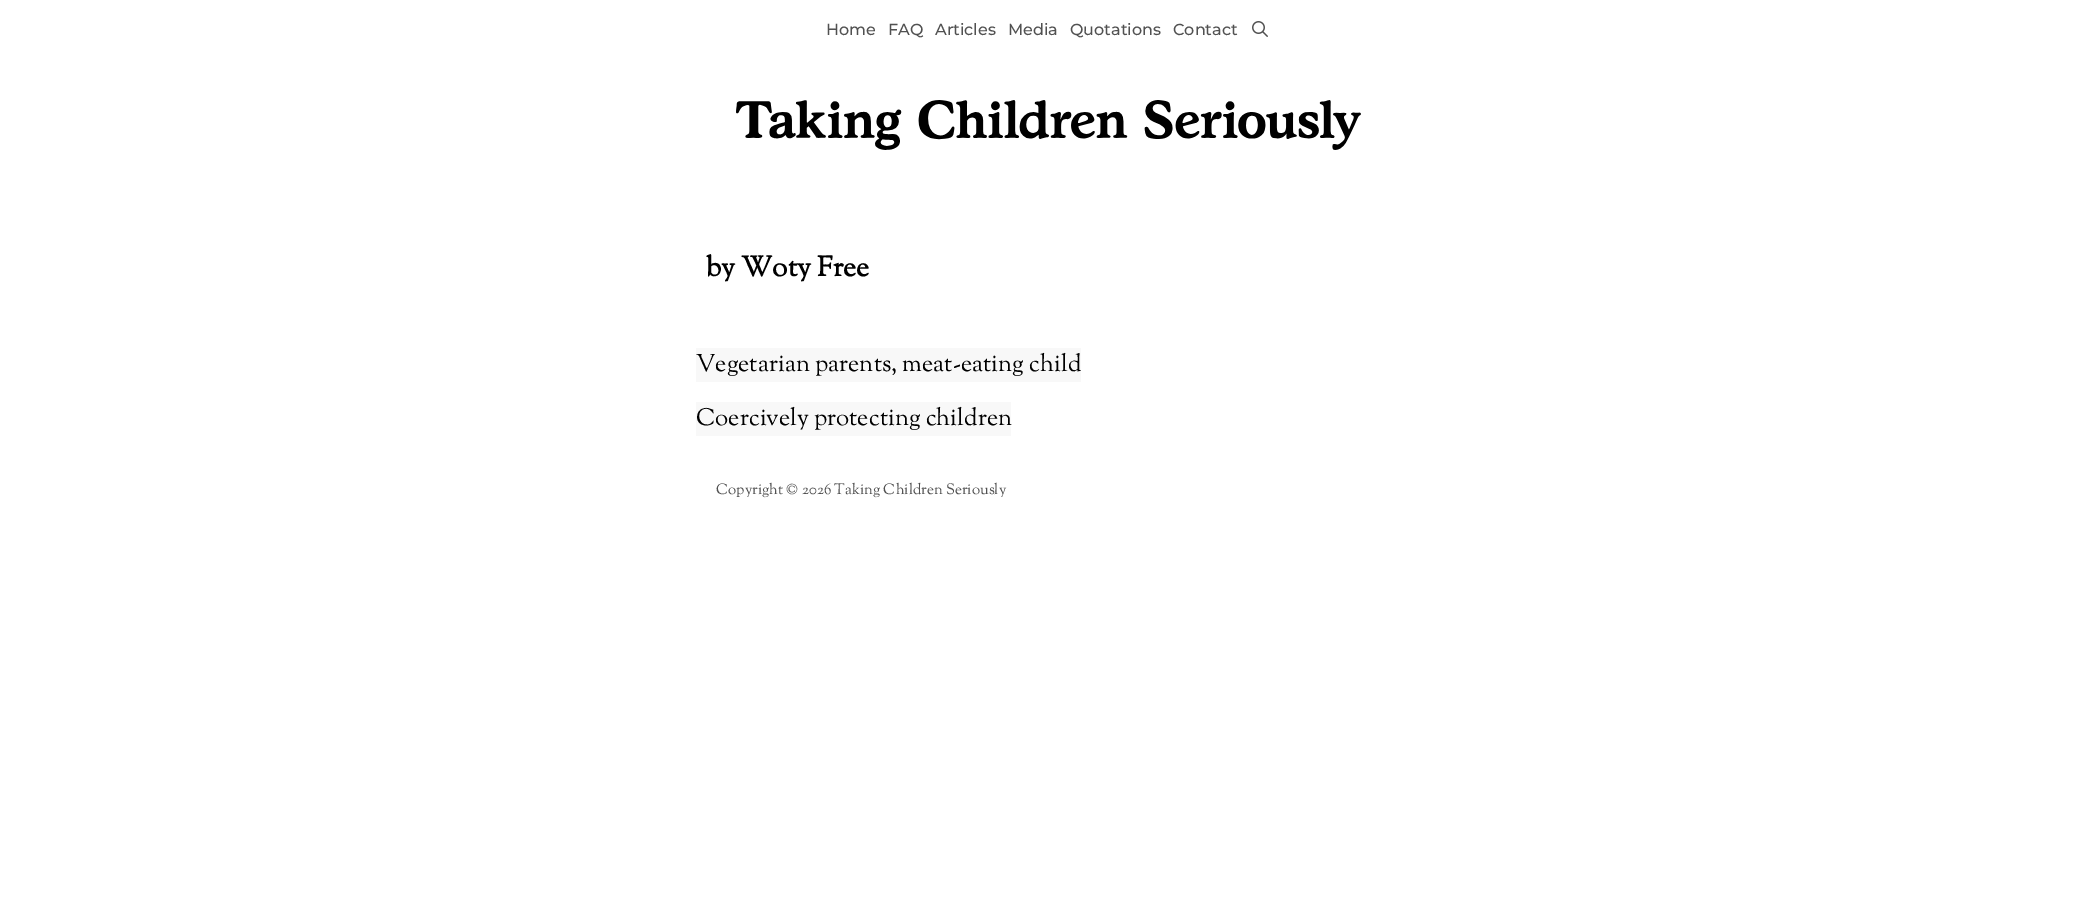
%!PS-Adobe-3.0
%%BoundingBox: 0 0 2096 911
%%LanguageLevel: 3
%%Pages: 1
%%EndComments
%%BeginProlog
/fn { [ exch dup neg 0 0 3 -1 roll 0 0 ] selectfont } def
/tx { moveto show } def
/bx { rectfill } def
/im { 5 dict begin { /h /w /y /x /name } { exch def } forall
  gsave x y translate w h scale
  w h 8 [w 0 0 h 0 0] name (r) file false 3 colorimage grestore end } def
%%EndProlog
%%BeginSetup
<< /PageSize [2096 911] >> setpagedevice
%%EndSetup
%%Page: 1 1
0 911 translate 1 -1 scale
4 setmiterlimit
1 setgray
0 0 2096 911 bx
/Montserrat-Medium 16 fn
0.318 setgray
(Home) 826 35 tx
(FAQ) 888 35 tx
(Articles) 935 35 tx
(Media) 1008 35 tx
(Quotations) 1070 35 tx
(Contact) 1173 35 tx
(image0.raw) 1252 21 16 16 im
(image1.raw) 736 100 625 50 im
/SortsMillGoudy-Bold 28 fn
0 setgray
(by Woty Free) 706 276 tx
0.973 setgray
696 348 385 34 bx
/SortsMillGoudy-Regular 24 fn
0 setgray
(Vegetarian parents, meat-eating child) 696 371 tx
0.973 setgray
696 402 315 34 bx
0 setgray
(Coercively protecting children) 696 425 tx
/SortsMillGoudy-Regular 15 fn
0.318 setgray
(Copyright © 2026 Taking Children Seriously) 716 494 tx
showpage
%%EOF
